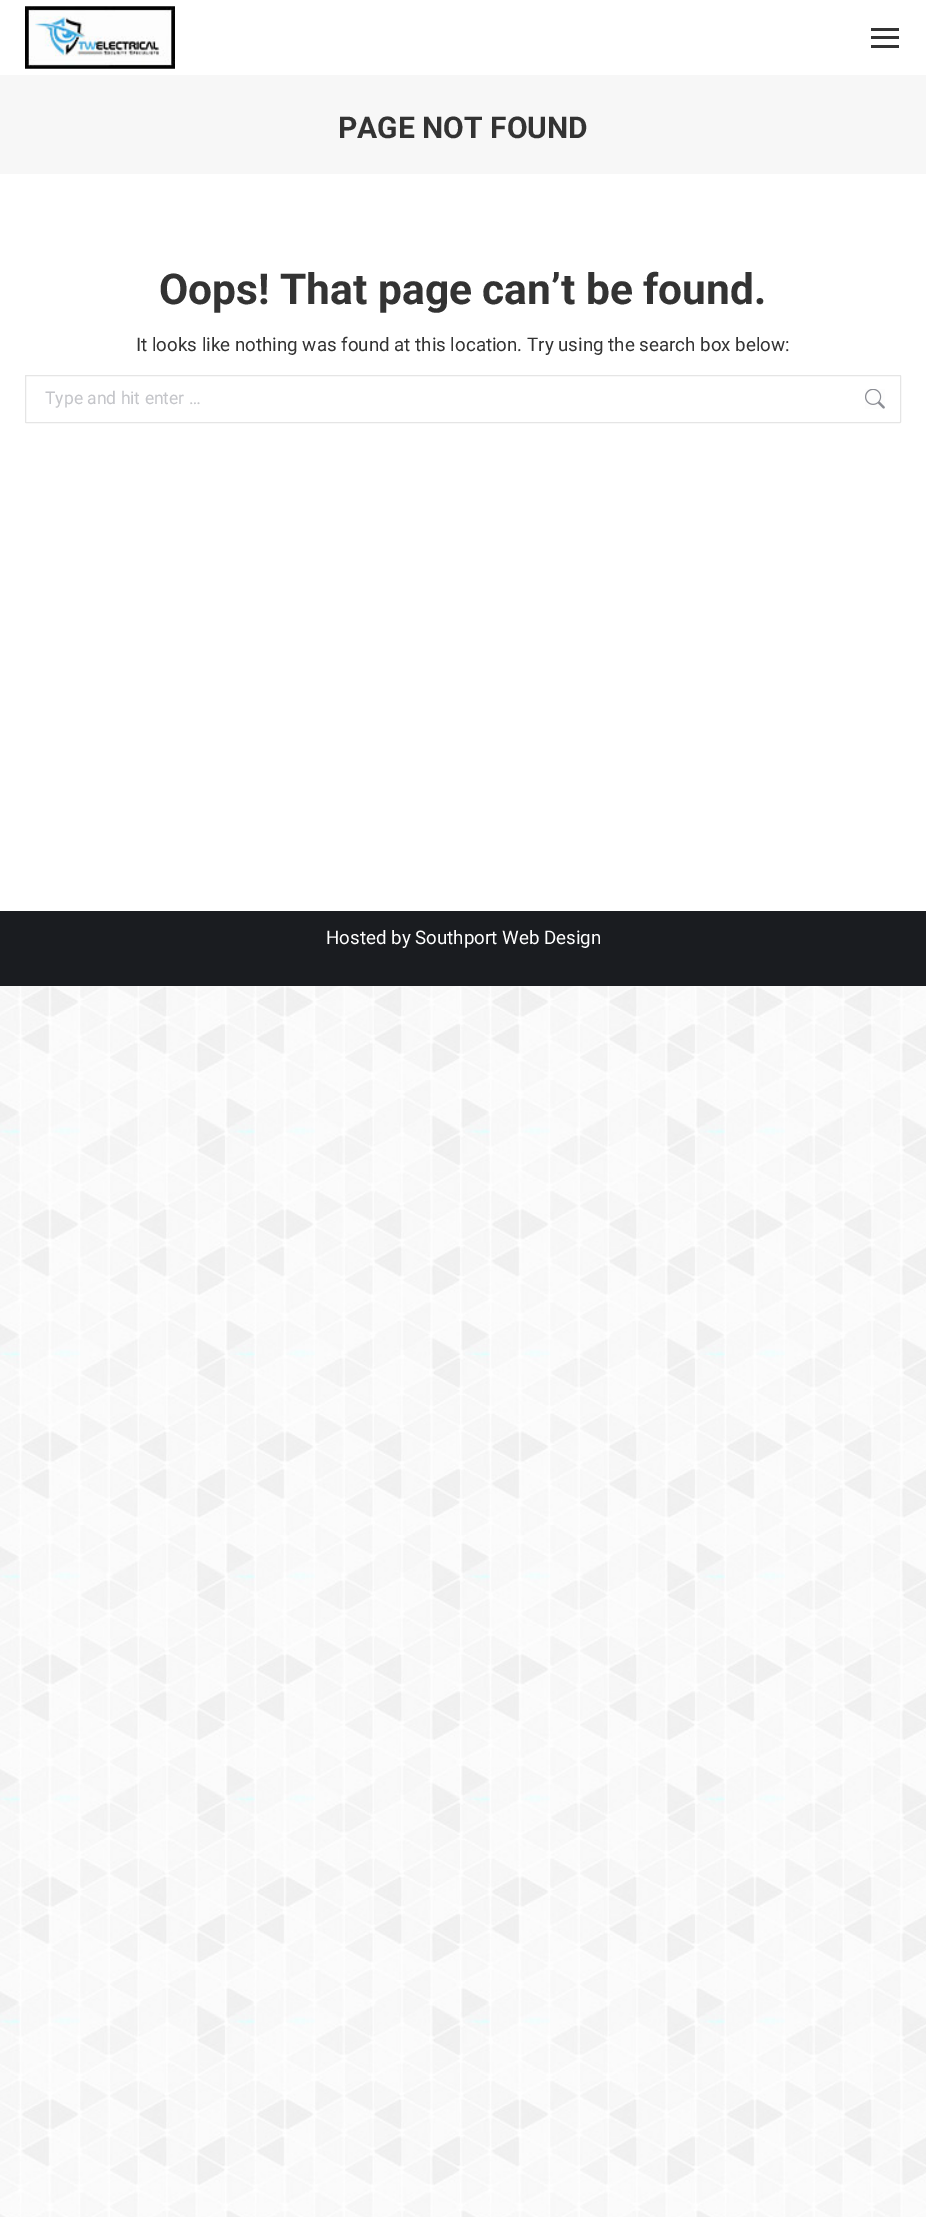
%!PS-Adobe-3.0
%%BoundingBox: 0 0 926 2217
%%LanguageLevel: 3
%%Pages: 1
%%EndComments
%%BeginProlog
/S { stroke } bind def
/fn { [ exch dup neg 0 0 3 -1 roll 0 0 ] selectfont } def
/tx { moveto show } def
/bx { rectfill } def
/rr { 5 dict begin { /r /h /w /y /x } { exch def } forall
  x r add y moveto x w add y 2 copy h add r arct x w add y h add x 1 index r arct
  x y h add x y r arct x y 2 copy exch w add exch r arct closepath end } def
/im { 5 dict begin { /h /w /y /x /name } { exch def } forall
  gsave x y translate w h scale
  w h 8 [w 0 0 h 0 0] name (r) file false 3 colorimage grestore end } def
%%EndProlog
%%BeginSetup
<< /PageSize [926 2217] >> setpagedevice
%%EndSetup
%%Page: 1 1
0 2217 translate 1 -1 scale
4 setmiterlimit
1 setgray
0 0 926 2217 bx
(image0.raw) 0 986 926 1231 im
(image1.raw) 25 6 150 63 im
0.2 setgray
871 28 28 3 bx
871 36 28 3 bx
871 45 28 3 bx
0.969 setgray
0 75 926 99 bx
/Roboto-Bold 30 fn
0.2 setgray
(PAGE NOT FOUND) 338 138 tx
/Roboto-Bold 42.5 fn
(Oops! That page can’t be found.) 159 304 tx
/Roboto-Regular 18.75 fn
(It looks like nothing was found at this location. Try using the search box below:) 136 351 tx
0.898 setgray
25.5 375.5 875 47 0.5 rr S
/Roboto-Regular 17.5 fn
0.769 0.773 0.788 setrgbcolor
(Type and hit enter …) 45 404 tx
(image2.raw) 865 389 20 20 im
0.102 0.11 0.125 setrgbcolor
0 911 926 75 bx
/Roboto-Regular 18.75 fn
1 setgray
(Hosted by Southport Web Design) 326 944 tx
showpage
%%EOF
